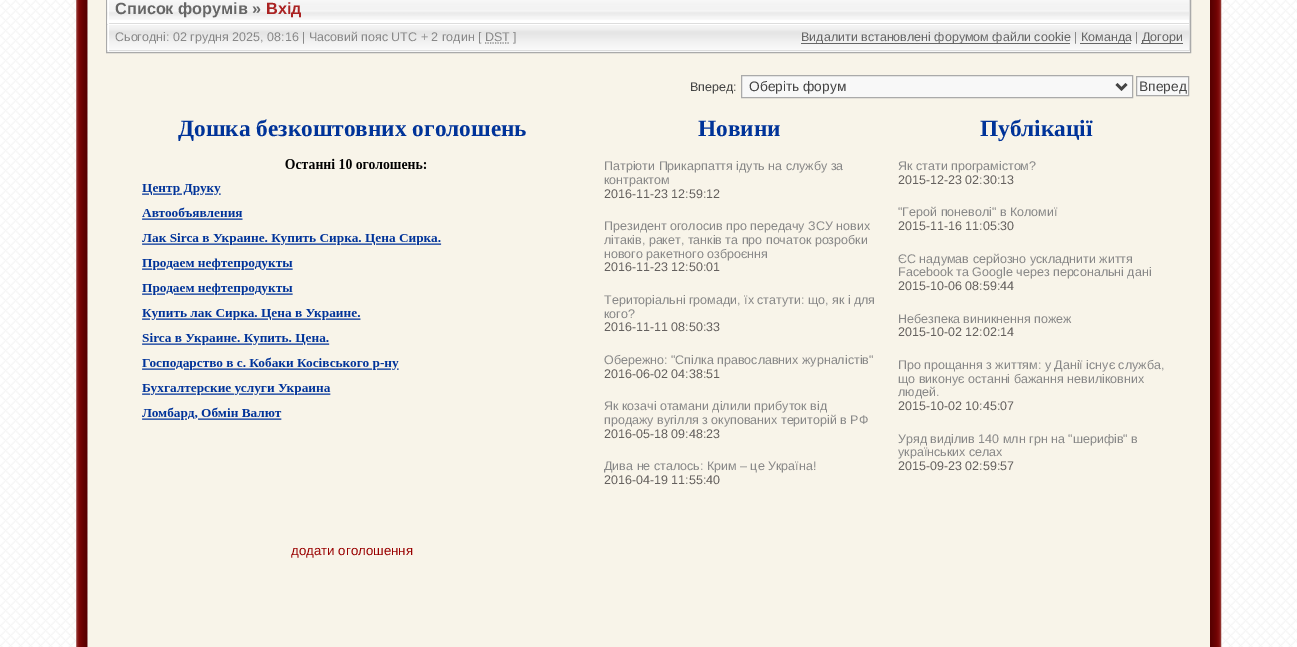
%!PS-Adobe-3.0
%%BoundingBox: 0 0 1297 647
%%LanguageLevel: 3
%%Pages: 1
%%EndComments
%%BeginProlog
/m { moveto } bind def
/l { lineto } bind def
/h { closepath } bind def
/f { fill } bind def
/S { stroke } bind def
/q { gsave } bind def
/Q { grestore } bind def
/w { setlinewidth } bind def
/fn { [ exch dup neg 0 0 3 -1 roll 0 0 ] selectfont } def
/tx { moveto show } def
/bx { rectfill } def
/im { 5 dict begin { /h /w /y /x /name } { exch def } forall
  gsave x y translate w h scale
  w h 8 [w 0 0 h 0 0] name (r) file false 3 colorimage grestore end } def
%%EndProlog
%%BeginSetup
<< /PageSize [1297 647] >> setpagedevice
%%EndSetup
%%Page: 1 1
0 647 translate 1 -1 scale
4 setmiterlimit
1 setgray
0 0 1297 647 bx
(image0.raw) 0 0 1297 647 im
(image1.raw) 76 0 12 647 im
0.973 0.957 0.914 setrgbcolor
88 0 1122 647 bx
0.973 setgray
106.5 -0.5 m 1190.5 -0.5 l 1190.5 52.5 l 106.5 52.5 l h q f Q
0.667 setgray
S
(image2.raw) 107 0 1082 24 im
0.867 setgray
1189 0 1 51 bx
108 23 1082 1 bx
1 setgray
108 0 1 24 bx
/LiberationSans-Bold 16.25 fn
0.4 setgray
(Список форумів ») 115 14 tx
0.667 0.133 0.133 setrgbcolor
(Вхід) 266 14 tx
1 setgray
109 24 1080 1 bx
(image3.raw) 107 25 1082 25 im
0.867 setgray
108 50 1082 1 bx
1 setgray
108 24 1 27 bx
/LiberationSans-Regular 12.5 fn
0.533 setgray
(Сьогодні: 02 грудня 2025, 08:16 | Часовий пояс UTC + 2 годин [ DST ]) 115 41 tx
1.2 w
[1.25 1.25] 0 setdash
485 43 m 510 43 l S
0.4 setgray
801 43 269 1 bx
(Видалити встановлені форумом файли cookie) 801 41 tx
0.533 setgray
(|) 1074 41 tx
0.4 setgray
1080 43 51 1 bx
(Команда) 1081 41 tx
0.533 setgray
(|) 1135 41 tx
0.4 setgray
1141 43 42 1 bx
(Догори) 1142 41 tx
0.267 setgray
(Вперед:) 690 91 tx
0.973 setgray
741.5 75.5 m 1132.5 75.5 l 1132.5 97.5 l 741.5 97.5 l h q f Q
0.667 setgray
1 w
[] 0 setdash
S
0.267 setgray
2.5 w
1116.5 84 m 1121.5 89 l 1126.5 84 l S
/LiberationSans-Regular 13.75 fn
(Оберіть форум) 749 91 tx
0.973 setgray
1136.5 76.5 m 1188.5 76.5 l 1188.5 95.5 l 1136.5 95.5 l h q f Q
0.667 setgray
1 w
S
0.267 setgray
(Вперед) 1139 91 tx
/LiberationSerif-Bold 23.3 fn
0 0.2 0.6 setrgbcolor
(Дошка безкоштовних оголошень) 178 136 tx
(image4.raw) 142 158 300 262 im
/LiberationSans-Regular 13.25 fn
0.6 0 0 setrgbcolor
(додати оголошення) 291 555 tx
/LiberationSerif-Bold 23.3 fn
0 0.2 0.6 setrgbcolor
(Новини) 698 136 tx
/LiberationSans-Regular 12.5 fn
0.533 setgray
(Патріоти Прикарпаття ідуть на службу за) 604 170 tx
(контрактом) 604 184 tx
0.392 0.376 0.369 setrgbcolor
(2016-11-23 12:59:12) 604 198 tx
0.533 setgray
(Президент оголосив про передачу ЗСУ нових) 604 230 tx
(літаків, ракет, танків та про початок розробки) 604 244 tx
(нового ракетного озброєння) 604 258 tx
0.392 0.376 0.369 setrgbcolor
(2016-11-23 12:50:01) 604 271 tx
0.533 setgray
(Територіальні громади, їх статути: що, як і для) 604 304 tx
(кого?) 604 318 tx
0.392 0.376 0.369 setrgbcolor
(2016-11-11 08:50:33) 604 331 tx
0.533 setgray
(Обережно: "Спілка православних журналістів") 604 364 tx
0.392 0.376 0.369 setrgbcolor
(2016-06-02 04:38:51) 604 378 tx
0.533 setgray
(Як козачі отамани ділили прибуток від) 604 410 tx
(продажу вугілля з окупованих територій в РФ) 604 424 tx
0.392 0.376 0.369 setrgbcolor
(2016-05-18 09:48:23) 604 438 tx
0.533 setgray
(Дива не сталось: Крим – це Україна!) 604 470 tx
0.392 0.376 0.369 setrgbcolor
(2016-04-19 11:55:40) 604 484 tx
/LiberationSerif-Bold 23.3 fn
0 0.2 0.6 setrgbcolor
(Публікації) 980 136 tx
/LiberationSans-Regular 12.5 fn
0.533 setgray
(Як стати програмістом?) 898 170 tx
0.392 0.376 0.369 setrgbcolor
(2015-12-23 02:30:13) 898 184 tx
0.533 setgray
("Герой поневолі" в Коломиї) 898 216 tx
0.392 0.376 0.369 setrgbcolor
(2015-11-16 11:05:30) 898 230 tx
0.533 setgray
(ЄC надумав серйозно ускладнити життя) 898 263 tx
(Facebook та Google через персональні дані) 898 276 tx
0.392 0.376 0.369 setrgbcolor
(2015-10-06 08:59:44) 898 290 tx
0.533 setgray
(Небезпека виникнення пожеж) 898 323 tx
0.392 0.376 0.369 setrgbcolor
(2015-10-02 12:02:14) 898 336 tx
0.533 setgray
(Про прощання з життям: у Данії існує служба,) 898 369 tx
(що виконує останні бажання невиліковних) 898 383 tx
(людей.) 898 396 tx
0.392 0.376 0.369 setrgbcolor
(2015-10-02 10:45:07) 898 410 tx
0.533 setgray
(Уряд виділив 140 млн грн на "шерифів" в) 898 443 tx
(українських селах) 898 456 tx
0.392 0.376 0.369 setrgbcolor
(2015-09-23 02:59:57) 898 470 tx
(image5.raw) 1210 0 12 647 im
showpage
%%EOF
